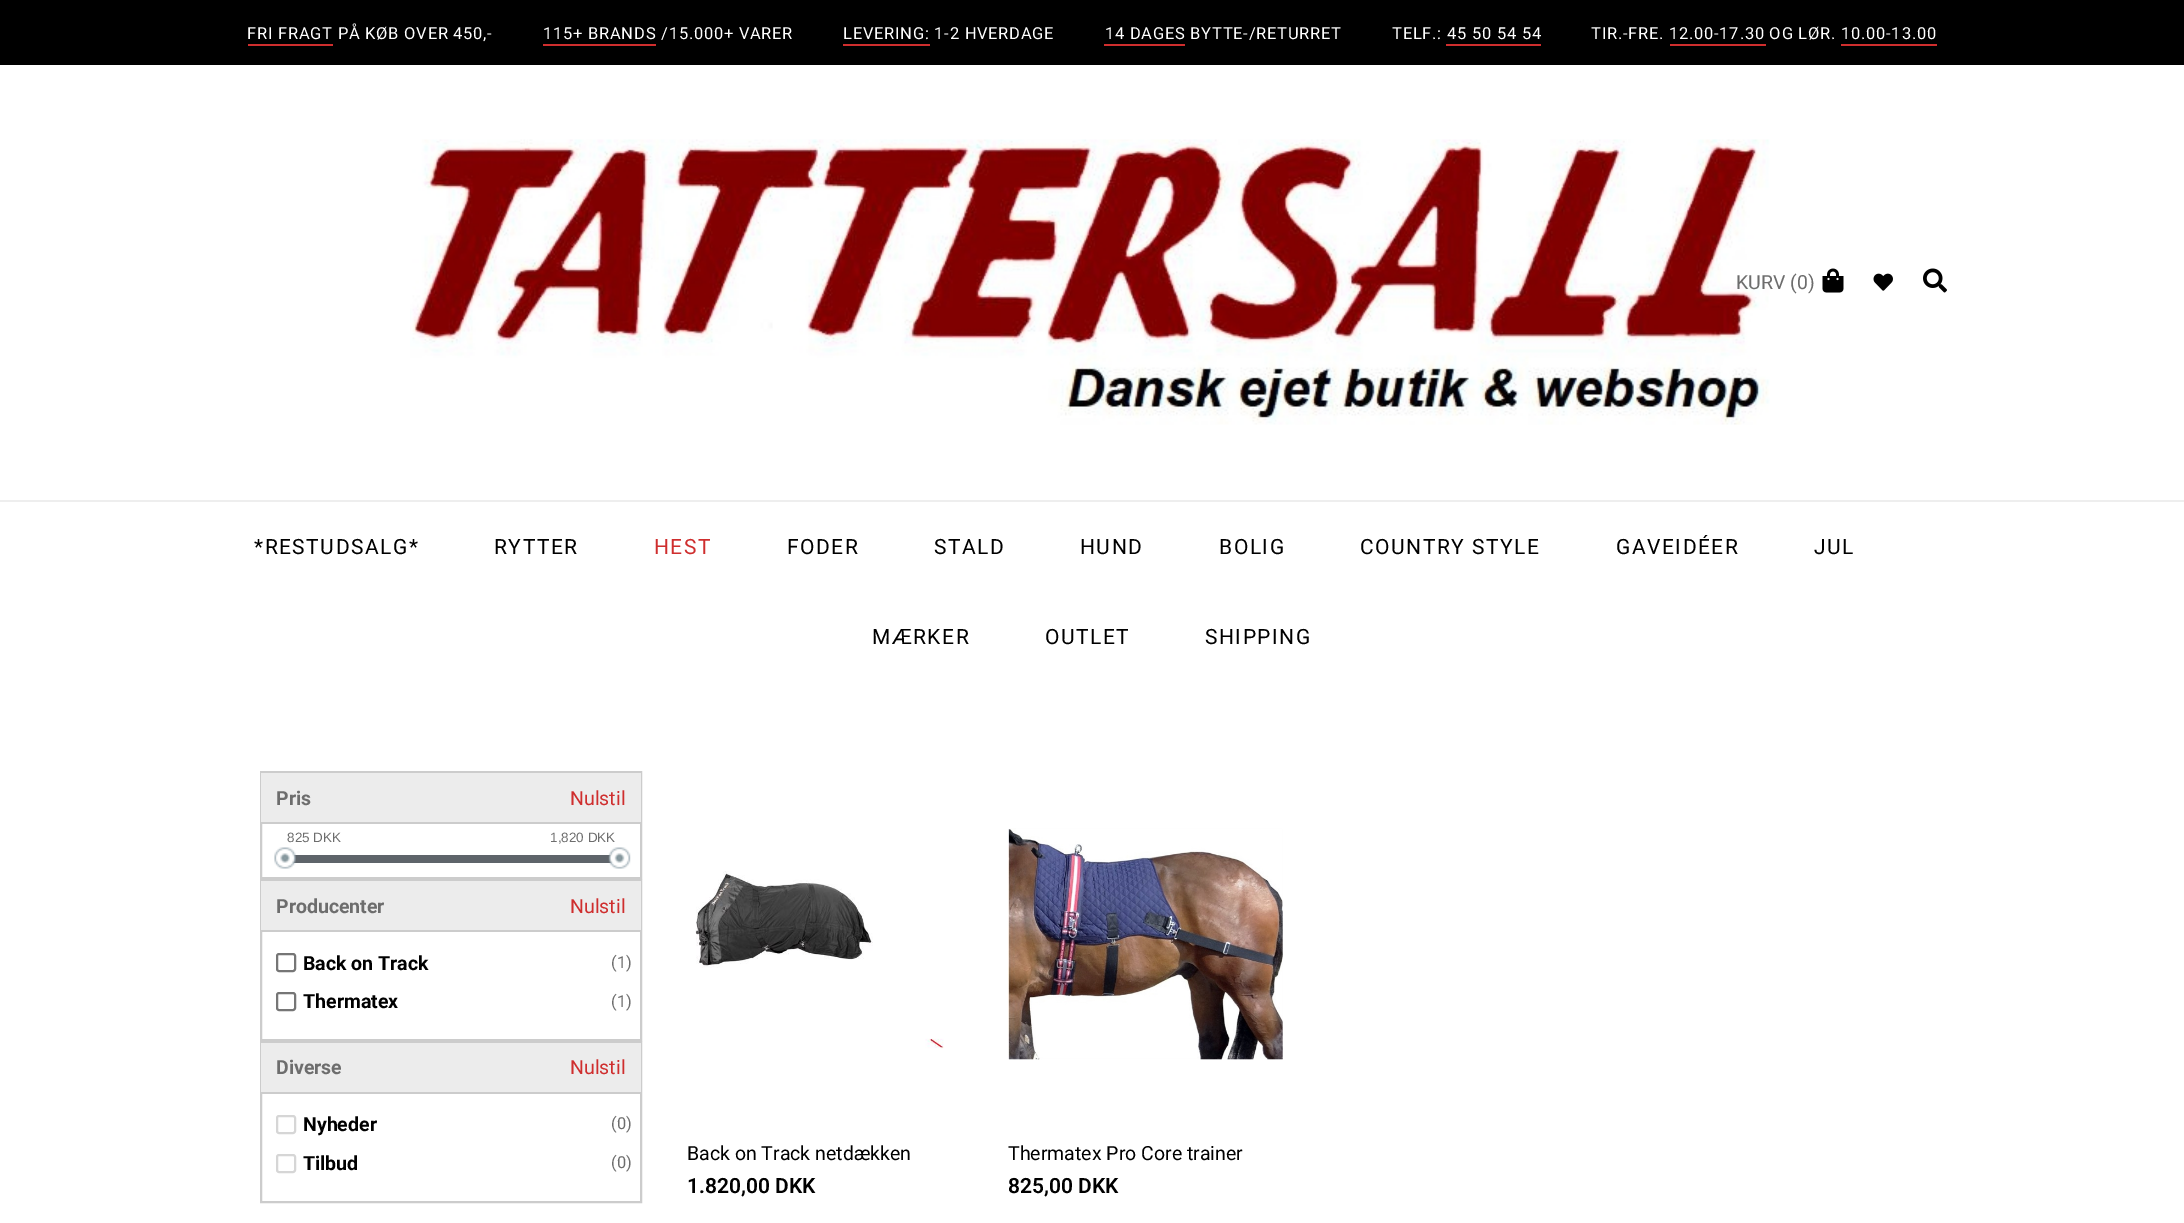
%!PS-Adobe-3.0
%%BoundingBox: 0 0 2184 1223
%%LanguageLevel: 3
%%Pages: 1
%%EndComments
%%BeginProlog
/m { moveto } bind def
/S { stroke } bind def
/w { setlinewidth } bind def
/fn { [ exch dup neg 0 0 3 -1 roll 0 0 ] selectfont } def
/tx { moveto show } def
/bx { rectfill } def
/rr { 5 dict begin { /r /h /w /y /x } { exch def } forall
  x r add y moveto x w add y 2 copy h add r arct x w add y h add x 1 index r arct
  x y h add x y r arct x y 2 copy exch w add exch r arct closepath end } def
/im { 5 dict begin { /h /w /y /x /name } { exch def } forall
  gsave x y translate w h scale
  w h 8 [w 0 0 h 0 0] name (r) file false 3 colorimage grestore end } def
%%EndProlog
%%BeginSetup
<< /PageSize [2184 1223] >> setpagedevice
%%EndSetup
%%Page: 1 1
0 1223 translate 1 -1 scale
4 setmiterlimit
1 setgray
0 0 2184 1223 bx
0 setgray
0 0 2184 65 bx
/Roboto-Regular 16.5 fn
1 setgray
247 39 m 0.75 0 (FRI FRAGT PÅ KØB OVER 450,-) ashow
0.812 0.18 0.18 setrgbcolor
248 44 85 2 bx
1 setgray
543 39 m 0.75 0 (115+ BRANDS /15.000+ VARER) ashow
0.812 0.18 0.18 setrgbcolor
543 44 113 2 bx
1 setgray
843 39 m 0.75 0 (LEVERING: 1-2 HVERDAGE) ashow
0.812 0.18 0.18 setrgbcolor
843 44 87 2 bx
1 setgray
1105 39 m 0.75 0 (14 DAGES BYTTE-/RETURRET) ashow
0.812 0.18 0.18 setrgbcolor
1104 44 81 2 bx
1 setgray
1392 39 m 0.75 0 (TELF.: 45 50 54 54) ashow
0.812 0.18 0.18 setrgbcolor
1446 44 95 2 bx
1 setgray
1591 39 m 0.75 0 (TIR.-FRE. 12.00-17.30 OG LØR. 10.00-13.00) ashow
0.812 0.18 0.18 setrgbcolor
1670 44 96 2 bx
1841 44 96 2 bx
0.933 setgray
0 500 2184 2 bx
(image0.raw) 410 139 1360 286 im
/Roboto-Regular 19.5 fn
0.427 setgray
(KURV \(0\)) 1736 289 tx
(image1.raw) 1822 268 22 25 im
(image2.raw) 1873 273 20 18 im
(image3.raw) 1923 268 24 25 im
/Roboto-Regular 21 fn
0 setgray
254 554 m 1.5 0 (*RESTUDSALG*) ashow
494 554 m 1.5 0 (RYTTER) ashow
0.812 0.18 0.18 setrgbcolor
654 554 m 1.5 0 (HEST) ashow
0 setgray
787 554 m 1.5 0 (FODER) ashow
934 554 m 1.5 0 (STALD) ashow
1080 554 m 1.5 0 (HUND) ashow
1219 554 m 1.5 0 (BOLIG) ashow
1360 554 m 1.5 0 (COUNTRY STYLE) ashow
1616 554 m 1.5 0 (GAVEIDÉER) ashow
1814 554 m 1.5 0 (JUL) ashow
872 644 m 1.5 0 (MÆRKER) ashow
1045 644 m 1.5 0 (OUTLET) ashow
1205 644 m 1.5 0 (SHIPPING) ashow
0.8 setgray
2 w
261 772 380 106 rectstroke
0.925 setgray
261 773 380 49 bx
0.8 setgray
261 822 380 2 bx
/Roboto-Bold 19.5 fn
0.427 setgray
(Pris) 276 805 tx
/Roboto-Regular 19.5 fn
0.812 0.18 0.18 setrgbcolor
(Nulstil) 570 805 tx
/LiberationSans-Regular 13.5 fn
0.427 setgray
(825 DKK) 287 842 tx
(1,820 DKK) 550 842 tx
0.369 0.392 0.416 setrgbcolor
292 855 326 8 bx
(image4.raw) 274 847 22 22 im
(image5.raw) 608 847 23 22 im
0.8 setgray
261 880 380 160 rectstroke
0.925 setgray
261 881 380 49 bx
0.8 setgray
261 930 380 2 bx
/Roboto-Bold 19.5 fn
0.427 setgray
(Producenter) 276 913 tx
/Roboto-Regular 19.5 fn
0.812 0.18 0.18 setrgbcolor
(Nulstil) 570 913 tx
0.463 setgray
277 954 18 17 2 rr S
/Roboto-Bold 19.5 fn
0 setgray
(Back on Track) 303 970 tx
/Roboto-Regular 16.5 fn
0.427 setgray
(\(1\)) 611 968 tx
0.463 setgray
277 993 18 17 2 rr S
/Roboto-Bold 19.5 fn
0 setgray
(Thermatex) 303 1008 tx
/Roboto-Regular 16.5 fn
0.427 setgray
(\(1\)) 611 1007 tx
0.8 setgray
261 1042 380 160 rectstroke
0.925 setgray
261 1043 380 49 bx
0.8 setgray
261 1092 380 2 bx
/Roboto-Bold 19.5 fn
0.427 setgray
(Diverse) 276 1074 tx
/Roboto-Regular 19.5 fn
0.812 0.18 0.18 setrgbcolor
(Nulstil) 570 1074 tx
0.839 setgray
277 1116 18 17 2 rr S
/Roboto-Bold 19.5 fn
0 setgray
(Nyheder) 303 1131 tx
/Roboto-Regular 16.5 fn
0.427 setgray
(\(0\)) 611 1129 tx
0.839 setgray
277 1155 18 17 2 rr S
/Roboto-Bold 19.5 fn
0 setgray
(Tilbud) 303 1170 tx
/Roboto-Regular 16.5 fn
0.427 setgray
(\(0\)) 611 1168 tx
(image6.raw) 695 871 249 178 im
/Roboto-Regular 19.5 fn
0 setgray
(Back on Track netdækken) 687 1160 tx
/Roboto-SemiBold 21 fn
(1.820,00 DKK) 687 1193 tx
(image7.raw) 1008 828 275 232 im
/Roboto-Regular 19.5 fn
(Thermatex Pro Core trainer) 1008 1160 tx
/Roboto-SemiBold 21 fn
(825,00 DKK) 1008 1193 tx
showpage
%%EOF
